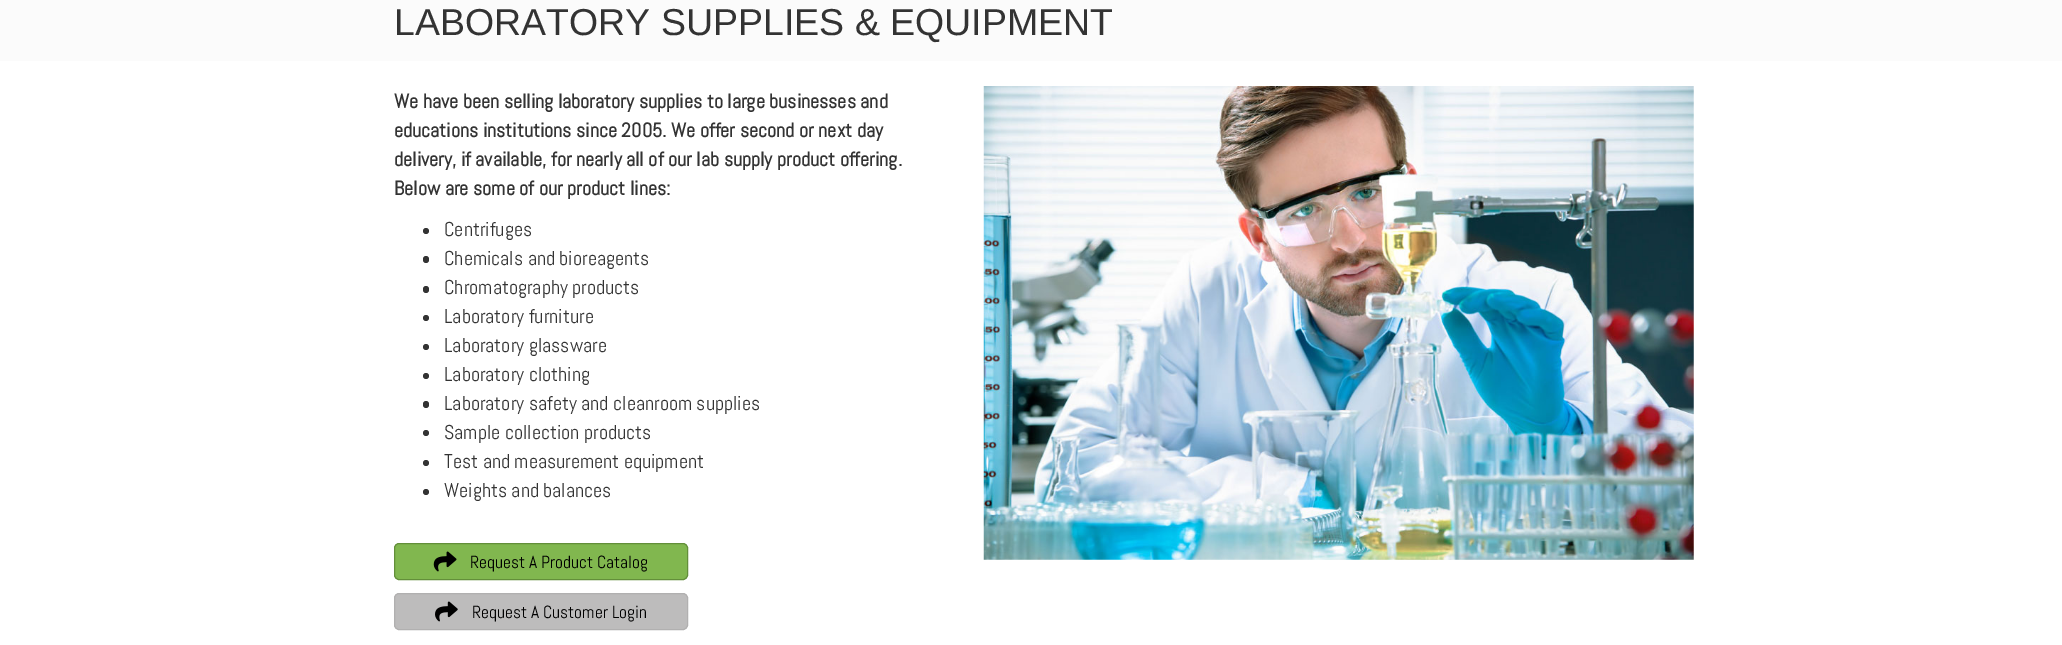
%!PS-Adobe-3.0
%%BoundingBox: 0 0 2062 645
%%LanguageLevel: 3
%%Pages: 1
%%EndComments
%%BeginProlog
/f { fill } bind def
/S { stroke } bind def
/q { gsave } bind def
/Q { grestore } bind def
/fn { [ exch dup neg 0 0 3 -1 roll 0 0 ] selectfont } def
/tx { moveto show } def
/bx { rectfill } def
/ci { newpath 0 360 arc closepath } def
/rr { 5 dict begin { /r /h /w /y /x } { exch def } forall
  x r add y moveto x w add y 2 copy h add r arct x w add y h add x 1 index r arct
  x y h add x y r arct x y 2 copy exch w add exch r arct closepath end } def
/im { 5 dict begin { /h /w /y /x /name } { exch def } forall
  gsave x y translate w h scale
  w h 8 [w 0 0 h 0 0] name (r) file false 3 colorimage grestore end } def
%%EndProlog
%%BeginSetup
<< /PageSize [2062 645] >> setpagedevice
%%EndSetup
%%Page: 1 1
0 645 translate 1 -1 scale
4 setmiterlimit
1 setgray
0 0 2062 645 bx
0.984 setgray
0 0 2062 61 bx
/LiberationSans-Regular 37.5 fn
0.2 setgray
(LABORATORY SUPPLIES & EQUIPMENT) 394 35 tx
/Abel-Bold 20 fn
(We have been selling laboratory supplies to large businesses and) 394 108 tx
(educations institutions since 2005. We offer second or next day) 394 137 tx
(delivery, if available, for nearly all of our lab supply product offering.) 394 166 tx
(Below are some of our product lines:) 394 195 tx
426 231 3 ci f
/Abel-Regular 20 fn
(Centrifuges) 444 236 tx
423 256 6 7 3 rr f
(Chemicals and bioreagents) 444 265 tx
423 286 6 7 3 rr f
(Chromatography products) 444 294 tx
426 318 3 ci f
(Laboratory furniture) 444 323 tx
426 347 3 ci f
(Laboratory glassware) 444 352 tx
426 376 3 ci f
(Laboratory clothing) 444 381 tx
423 401 6 7 3 rr f
(Laboratory safety and cleanroom supplies) 444 410 tx
426 433 3 ci f
(Sample collection products) 444 439 tx
426 463 3 ci f
(Test and measurement equipment) 444 468 tx
426 492 3 ci f
(Weights and balances) 444 497 tx
0.506 0.718 0.31 setrgbcolor
394.5 543.5 293 36 4.5 rr q f Q
0.388 0.561 0.227 setrgbcolor
S
(image0.raw) 433 551 24 21 im
/Abel-Regular 17.5 fn
0 setgray
(Request A Product Catalog) 470 568 tx
0.741 0.737 0.737 setrgbcolor
394.5 593.5 293 36 4.5 rr q f Q
0.694 0.69 0.69 setrgbcolor
S
(image1.raw) 435 601 23 21 im
0 setgray
(Request A Customer Login) 472 618 tx
(image2.raw) 983 86 711 474 im
showpage
%%EOF
